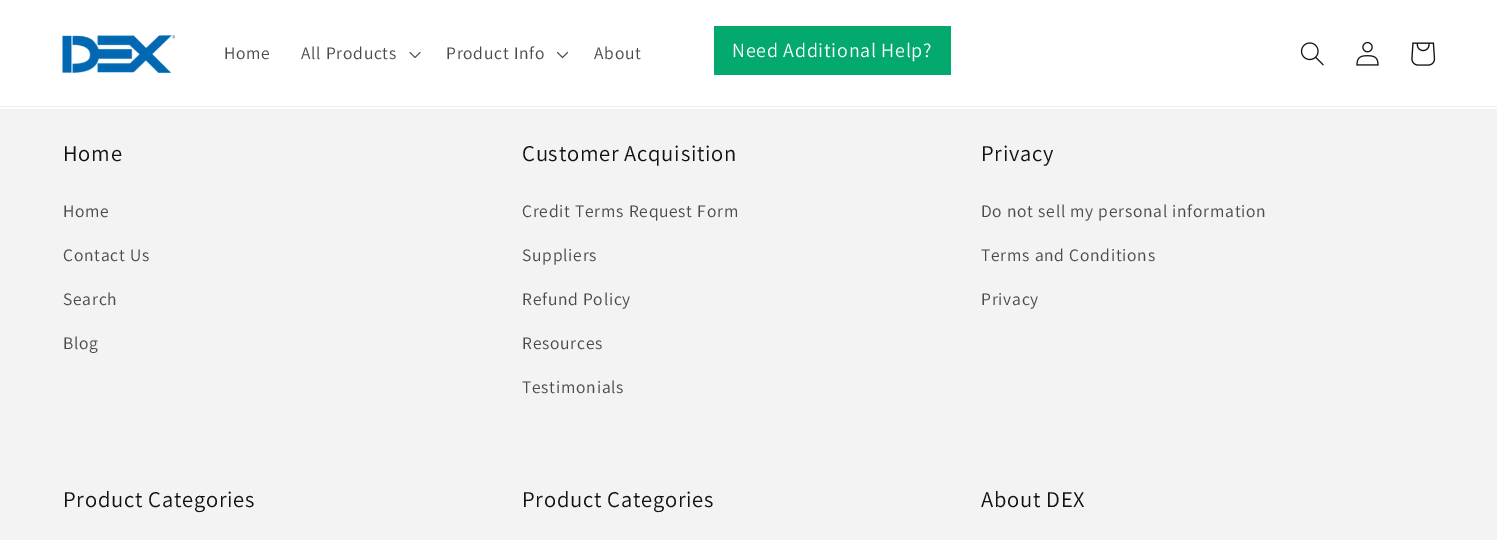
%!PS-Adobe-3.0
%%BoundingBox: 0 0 1497 540
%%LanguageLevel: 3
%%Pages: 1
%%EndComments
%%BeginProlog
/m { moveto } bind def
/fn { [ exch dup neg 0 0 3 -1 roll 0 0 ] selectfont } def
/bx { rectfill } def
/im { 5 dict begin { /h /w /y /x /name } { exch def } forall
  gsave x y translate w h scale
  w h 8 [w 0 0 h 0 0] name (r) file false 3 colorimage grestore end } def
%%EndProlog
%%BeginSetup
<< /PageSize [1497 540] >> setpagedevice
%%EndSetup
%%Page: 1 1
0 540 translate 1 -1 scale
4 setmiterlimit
1 setgray
0 0 1497 540 bx
0.925 setgray
0 106 1497 1 bx
(image0.raw) 62 35 113 38 im
/Assistant-Regular 17.5 fn
0.29 setgray
224 59 m 0.75 0 (Home) ashow
301 59 m 0.75 0 (All Products) ashow
(image1.raw) 409 52 12 6 im
446 59 m 0.75 0 (Product Info) ashow
(image2.raw) 556 51 13 8 im
594 59 m 0.75 0 (About) ashow
0.016 0.667 0.427 setrgbcolor
714 26 237 49 bx
/Assistant-Regular 20 fn
1 setgray
732 57 m 0.75 0 (Need Additional Help?) ashow
(image3.raw) 1300 42 24 24 im
(image4.raw) 1356 41 23 25 im
(image5.raw) 1411 42 25 24 im
0.953 setgray
0 109 1497 431 bx
/Assistant-Regular 22.5 fn
0.071 setgray
63 161 m 0.75 0 (Home) ashow
/Assistant-Regular 17.5 fn
0.29 setgray
63 217 m 0.75 0 (Home) ashow
63 261 m 0.75 0 (Contact Us) ashow
63 305 m 0.75 0 (Search) ashow
63 349 m 0.75 0 (Blog) ashow
/Assistant-Regular 22.5 fn
0.071 setgray
522 161 m 0.75 0 (Customer Acquisition) ashow
/Assistant-Regular 17.5 fn
0.29 setgray
522 217 m 0.75 0 (Credit Terms Request Form) ashow
522 261 m 0.75 0 (Suppliers) ashow
522 305 m 0.75 0 (Refund Policy) ashow
522 349 m 0.75 0 (Resources) ashow
522 393 m 0.75 0 (Testimonials) ashow
/Assistant-Regular 22.5 fn
0.071 setgray
981 161 m 0.75 0 (Privacy) ashow
/Assistant-Regular 17.5 fn
0.29 setgray
981 217 m 0.75 0 (Do not sell my personal information) ashow
981 261 m 0.75 0 (Terms and Conditions) ashow
981 305 m 0.75 0 (Privacy) ashow
/Assistant-Regular 22.5 fn
0.071 setgray
63 507 m 0.75 0 (Product Categories) ashow
522 507 m 0.75 0 (Product Categories) ashow
981 507 m 0.75 0 (About DEX) ashow
showpage
%%EOF
